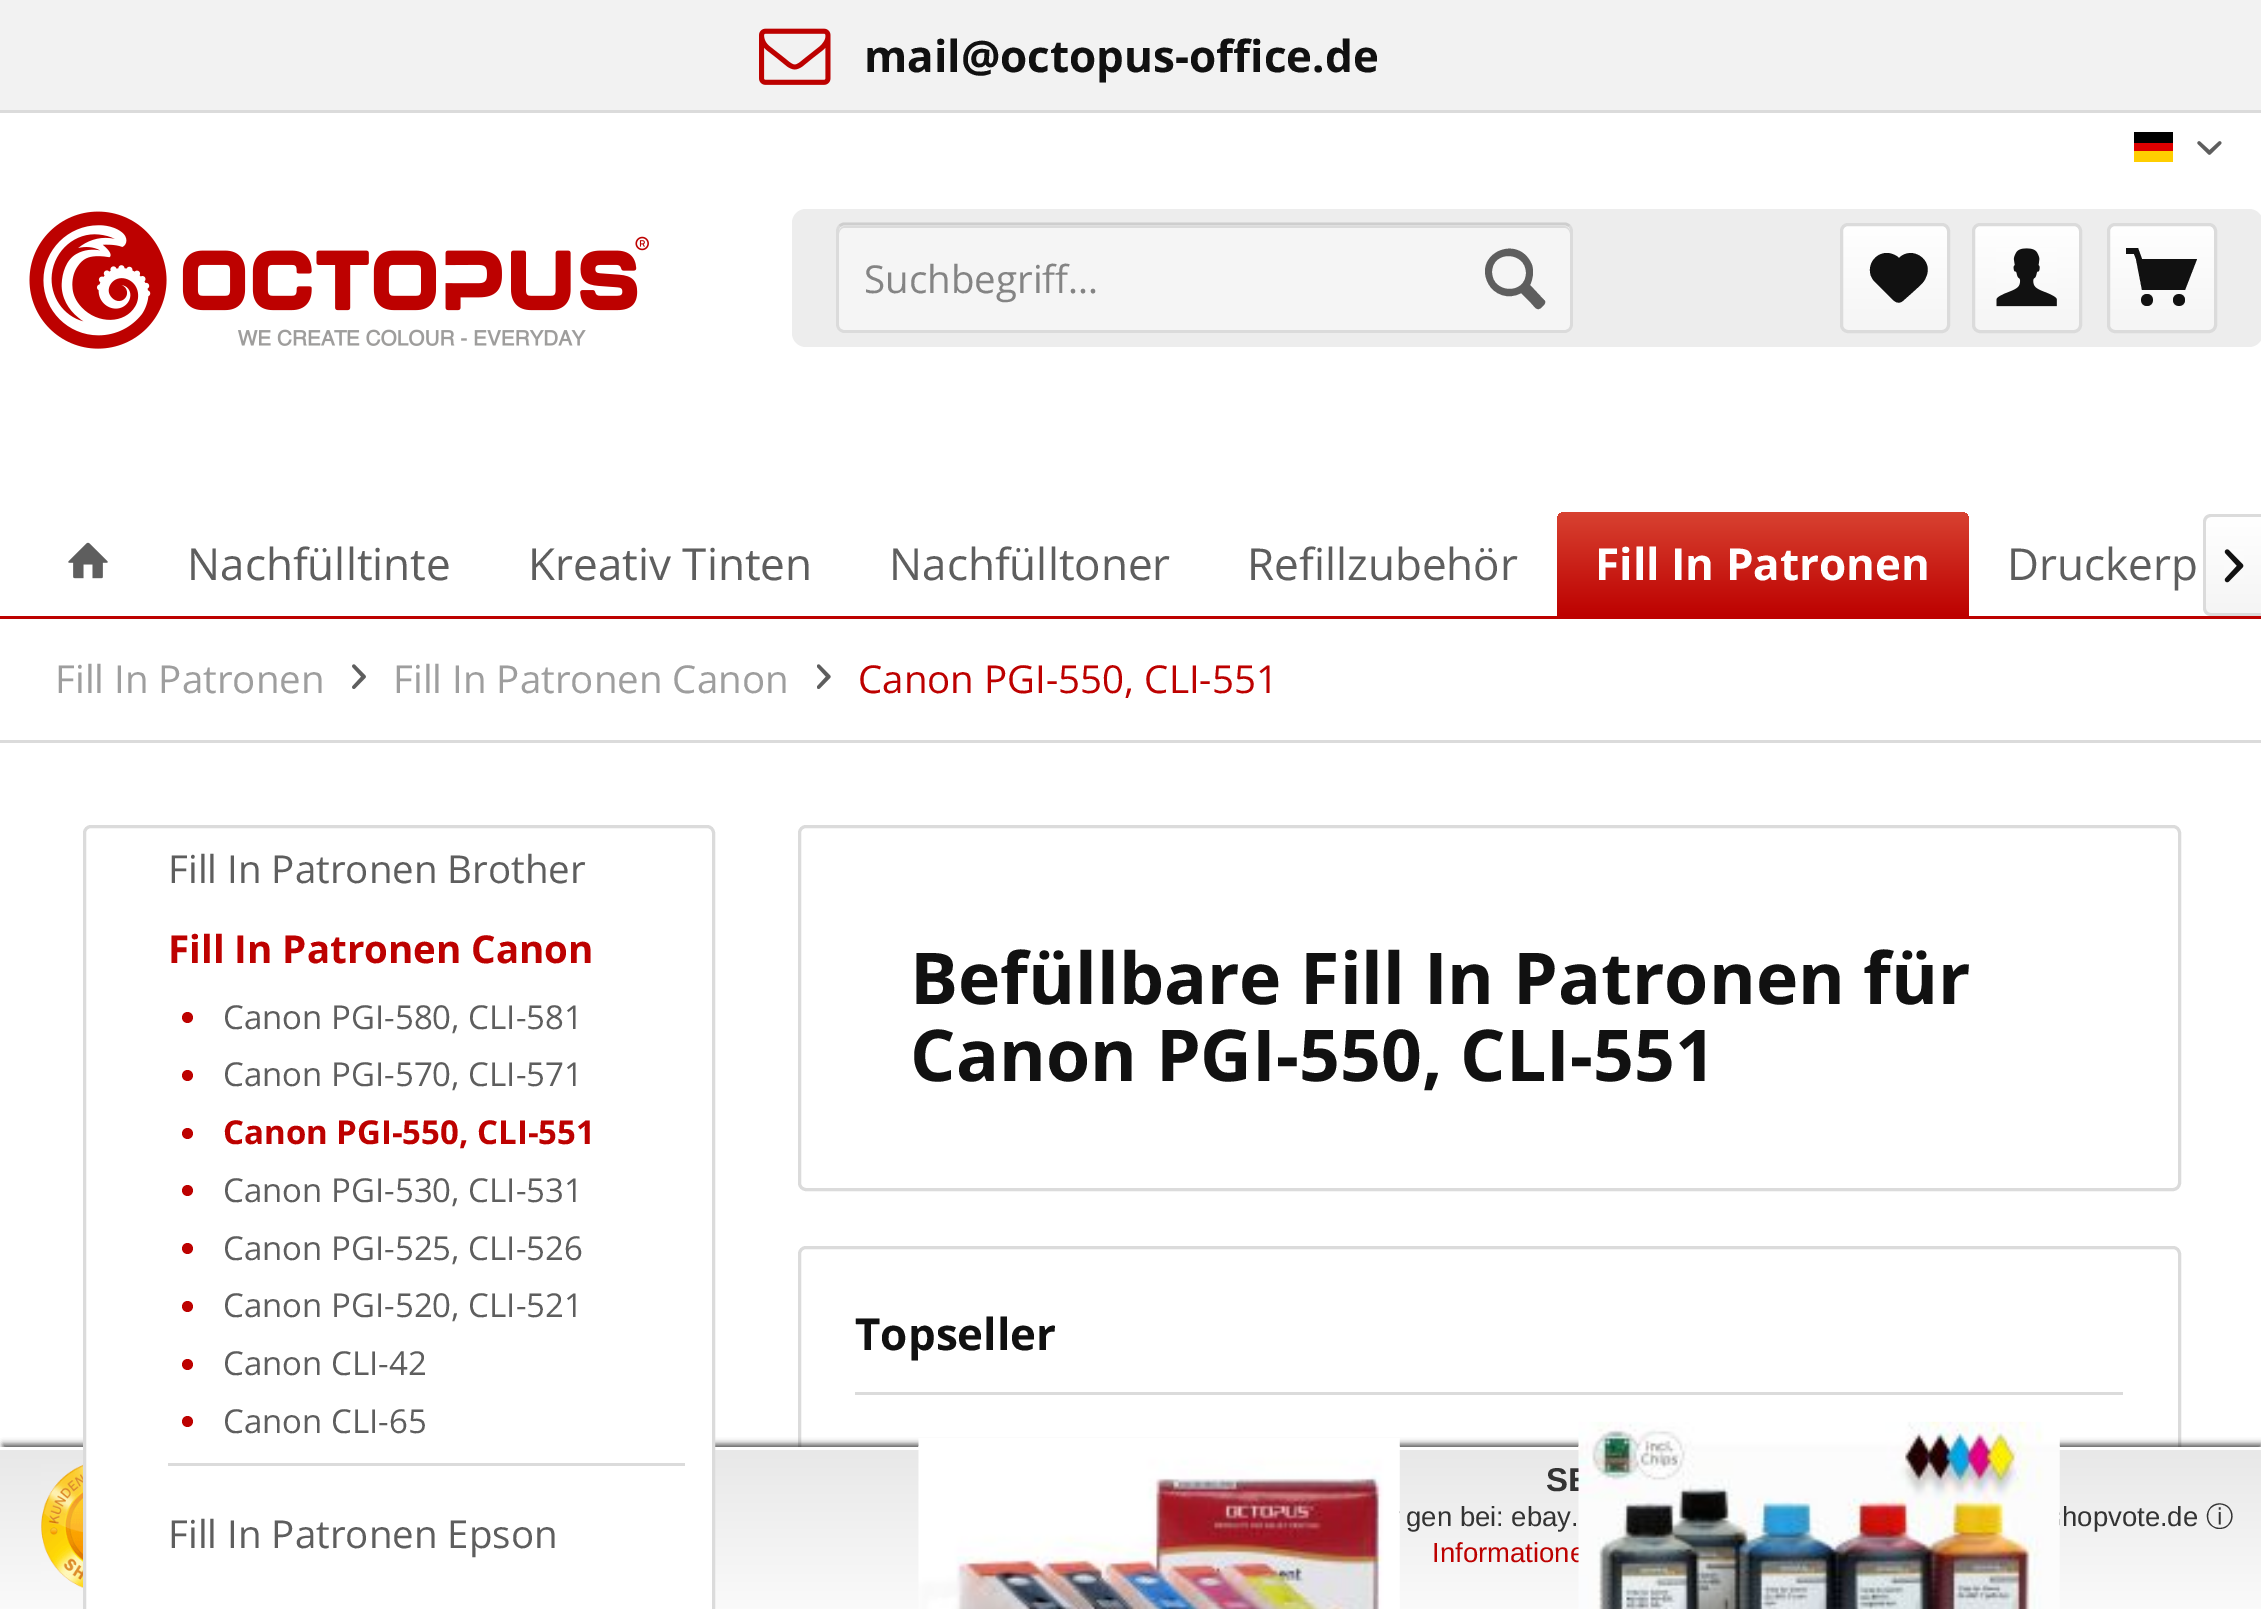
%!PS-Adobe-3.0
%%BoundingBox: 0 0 2261 1609
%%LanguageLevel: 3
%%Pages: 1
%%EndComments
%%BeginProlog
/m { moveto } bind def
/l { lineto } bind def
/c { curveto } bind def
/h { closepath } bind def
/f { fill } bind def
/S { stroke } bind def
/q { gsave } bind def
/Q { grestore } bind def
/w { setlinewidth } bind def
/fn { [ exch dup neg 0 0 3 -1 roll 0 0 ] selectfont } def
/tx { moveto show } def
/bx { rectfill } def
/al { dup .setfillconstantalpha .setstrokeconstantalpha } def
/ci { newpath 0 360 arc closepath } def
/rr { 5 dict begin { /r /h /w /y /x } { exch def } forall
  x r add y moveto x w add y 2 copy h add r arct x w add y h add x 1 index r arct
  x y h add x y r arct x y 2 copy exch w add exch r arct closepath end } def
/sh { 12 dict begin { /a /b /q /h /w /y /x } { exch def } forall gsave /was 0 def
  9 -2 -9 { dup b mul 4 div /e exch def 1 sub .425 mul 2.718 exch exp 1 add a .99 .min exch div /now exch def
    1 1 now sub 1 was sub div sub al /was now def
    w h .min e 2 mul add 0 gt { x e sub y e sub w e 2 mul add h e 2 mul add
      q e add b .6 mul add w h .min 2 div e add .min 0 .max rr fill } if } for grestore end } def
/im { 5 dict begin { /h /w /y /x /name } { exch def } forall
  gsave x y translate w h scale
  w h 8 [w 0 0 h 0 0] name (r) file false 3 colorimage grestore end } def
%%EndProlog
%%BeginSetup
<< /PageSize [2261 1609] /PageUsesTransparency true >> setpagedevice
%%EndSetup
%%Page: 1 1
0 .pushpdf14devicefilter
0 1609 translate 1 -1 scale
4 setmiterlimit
1 setgray
0 0 2261 1609 bx
0.949 setgray
0 0 2261 110 bx
0.859 setgray
0 110 2261 3 bx
(image0.raw) 759 28 72 57 im
/OpenSans-Bold 44 fn
0.067 setgray
(mail@octopus-office.de) 864 72 tx
0 setgray
2134 132 39 11 bx
0.867 0 0 setrgbcolor
2134 143 39 8 bx
1 0.808 0 setrgbcolor
2134 151 39 11 bx
(image1.raw) 2197 141 25 14 im
(image2.raw) 29 211 620 138 im
0.929 setgray
792 209 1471 138 14 rr f
0.961 setgray
836 223 737 110 8 rr f
0.859 setgray
844 228 m 1565 228 l 1568 228 1570 231 1570 234 c 1570 232 l 1570 229 1567 226 1564 226 c 845 226 l 842 226 839 229 839 232 c 839 234 l 839 231 841 228 844 228 c h f
0.808 setgray
2.8 w
839.5 226 m 840.5 225 842.5 224 844 224 c 1565 224 l 1566.5 224 1568.5 225 1569.5 226 c S
0.859 setgray
1569.5 226 m 1571 227.5 1571.5 229 1571.5 231 c 1571.5 324.5 l 1571.5 326.5 1571 328 1569.5 329.5 c 1568.5 330.5 1566.5 331.5 1565 331.5 c 844 331.5 l 842.5 331.5 840.5 330.5 839.5 329.5 c 838 328 837.5 326.5 837.5 324.5 c 837.5 231 l 837.5 229 838 227.5 839.5 226 c S
/OpenSans-Regular 38.5 fn
0.518 setgray
(Suchbegriff...) 864 293 tx
0.369 setgray
1544 300 m 1530 285 l 1533 279 1534 271 1532 265 c 1519 233 1473 253 1488 283 c 1494 295 1509 300 1521 293 c 1531 303 l 1535 307 1537 312 1542 307 c 1544 305 1547 302 1544 300 c h 1492 272 m 1492 250 1526 251 1526 273 c 1526 295 1492 294 1492 272 c h f
q 1843 226 104 104 6 rr clip newpath
<< /ShadingType 2 /ColorSpace /DeviceRGB /Coords [1895 226 1895 330] /Extend [true true] /Function << /FunctionType 2 /Domain [0 1] /C0 [1 1 1] /C1 [0.961 0.961 0.961] /N 1 >> >> shfill Q
0.859 setgray
3 w
1841.5 224.5 107 107 6.5 rr S
0.067 setgray
1887 253 m 1875 253 1867 265 1871 276 c 1872 278 1873 280 1874 281 c 1891 298 l 1897 304 1900 304 1905 299 c 1914 291 l 1918 287 1924 283 1926 277 c 1934 260 1912 245 1899 258 c 1896 255 1891 253 1887 253 c h f
q 1975 226 104 104 6 rr clip newpath
<< /ShadingType 2 /ColorSpace /DeviceRGB /Coords [2027 226 2027 330] /Extend [true true] /Function << /FunctionType 2 /Domain [0 1] /C0 [1 1 1] /C1 [0.961 0.961 0.961] /N 1 >> >> shfill Q
0.859 setgray
1973.5 224.5 107 107 6.5 rr S
(image3.raw) 1996 248 61 59 im
q 2109 226 105 104 6 rr clip newpath
<< /ShadingType 2 /ColorSpace /DeviceRGB /Coords [2162 226 2162 330] /Extend [true true] /Function << /FunctionType 2 /Domain [0 1] /C0 [1 1 1] /C1 [0.961 0.961 0.961] /N 1 >> >> shfill Q
2108.5 224.5 107 107 6.5 rr S
0.067 setgray
2142 290 m 2185 290 l 2197 259 l 2142 259 l 2138 248 l 2126 248 l 2126 254 l 2134 254 l 2136 259 l h 2147 294 m 2139 294 2139 306 2147 306 c 2155 306 2155 294 2147 294 c h 2185 300 m 2185 308 2173 308 2173 300 c 2173 292 2185 292 2185 300 c h f
0.741 0.004 0 setrgbcolor
0 616 2261 3 bx
(image4.raw) 68 542 40 37 im
/OpenSans-Regular 44 fn
0.369 setgray
(Nachfülltinte) 187 580 tx
(Kreativ Tinten) 528 580 tx
(Nachfülltoner) 889 580 tx
(Refillzubehör) 1247 580 tx
q 1565 512 m 1961 512 l 1965.5 512 1969 515.5 1969 520 c 1969 616 l 1557 616 l 1557 520 l 1557 515.5 1560.5 512 1565 512 c h clip newpath
<< /ShadingType 2 /ColorSpace /DeviceRGB /Coords [1763 512 1763 616] /Extend [true true] /Function << /FunctionType 2 /Domain [0 1] /C0 [0.847 0.259 0.192] /C1 [0.741 0.004 0] /N 1 >> >> shfill Q
/OpenSans-Bold 44 fn
1 setgray
(Fill In Patronen) 1595 580 tx
/OpenSans-Regular 44 fn
0.369 setgray
(Druckerp) 2007 580 tx
q 2212 517 m 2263 517 l 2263 613 l 2212 613 l 2208.5 613 2206 610.5 2206 607 c 2206 523 l 2206 519.5 2208.5 517 2212 517 c h clip newpath
<< /ShadingType 2 /ColorSpace /DeviceRGB /Coords [2234 517 2234 613] /Extend [true true] /Function << /FunctionType 2 /Domain [0 1] /C0 [1 1 1] /C1 [0.961 0.961 0.961] /N 1 >> >> shfill Q
0.859 setgray
2211 514 m 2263 514 l 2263 616 l 2211 616 l 2206 616 2203 612 2203 608 c 2203 522 l 2203 518 2206 514 2211 514 c h 2211 517 m 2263 517 l 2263 613 l 2211 613 l 2208 613 2206 611 2206 608 c 2206 522 l 2206 519 2208 517 2211 517 c h eofill
(image5.raw) 2224 549 20 34 im
0 740 2261 3 bx
/OpenSans-Regular 38.5 fn
0.62 setgray
(Fill In Patronen) 55 693 tx
(image6.raw) 352 664 14 25 im
(Fill In Patronen Canon) 393 693 tx
(image7.raw) 817 664 14 25 im
0.741 0.004 0 setrgbcolor
(Canon PGI-550, CLI-551) 858 693 tx
0.859 setgray
799.5 1247.5 1380 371 6.5 rr S
0 setgray
3 1444 2258 159 0 3 0.65 sh
q 0 1450 m 2261 1450 l 2261 1609 l 0 1609 l h clip newpath
<< /ShadingType 2 /ColorSpace /DeviceRGB /Coords [1132 1449 1132 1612] /Extend [true true] /Function << /FunctionType 2 /Domain [0 1] /C0 [0.91 0.91 0.91] /C1 [0.98 0.98 0.98] /N 1 >> >> shfill Q
1 setgray
0 1447 2261 3 bx
85 828 627 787 6 rr f
0.859 setgray
84.5 826.5 629 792 6.5 rr S
0.369 setgray
(Fill In Patronen Brother) 168 883 tx
/OpenSans-Bold 38.5 fn
0.741 0.004 0 setrgbcolor
(Fill In Patronen Canon) 168 963 tx
0.859 setgray
168 1463 517 3 bx
0.741 0.004 0 setrgbcolor
187.5 1017.5 5.5 ci f
/OpenSans-Regular 33 fn
0.369 setgray
(Canon PGI-580, CLI-581) 223 1029 tx
0.741 0.004 0 setrgbcolor
187.5 1075.5 5.5 ci f
0.369 setgray
(Canon PGI-570, CLI-571) 223 1086 tx
0.741 0.004 0 setrgbcolor
187.5 1133.5 5.5 ci f
/OpenSans-Bold 33 fn
(Canon PGI-550, CLI-551) 223 1144 tx
187.5 1190.5 5.5 ci f
/OpenSans-Regular 33 fn
0.369 setgray
(Canon PGI-530, CLI-531) 223 1202 tx
0.741 0.004 0 setrgbcolor
187.5 1248.5 5.5 ci f
0.369 setgray
(Canon PGI-525, CLI-526) 223 1260 tx
0.741 0.004 0 setrgbcolor
187.5 1306.5 5.5 ci f
0.369 setgray
(Canon PGI-520, CLI-521) 223 1317 tx
0.741 0.004 0 setrgbcolor
187.5 1364.5 5.5 ci f
0.369 setgray
(Canon CLI-42) 223 1375 tx
0.741 0.004 0 setrgbcolor
187.5 1421.5 5.5 ci f
0.369 setgray
(Canon CLI-65) 223 1433 tx
/OpenSans-Regular 38.5 fn
(Fill In Patronen Epson) 168 1548 tx
0.859 setgray
799.5 826.5 1380 363 6.5 rr S
/OpenSans-Bold 71.5 fn
0.067 setgray
(Befüllbare Fill In Patronen für) 910 1004 tx
(Canon PGI-550, CLI-551) 910 1081 tx
0.859 setgray
855 1392 1268 3 bx
/OpenSans-Bold 44 fn
0.067 setgray
(Topseller) 855 1350 tx
(image8.raw) 918 1438 482 171 im
/LiberationSans-Bold 33 fn
0.2 setgray
(SE) 1546 1491 tx
/LiberationSans-Regular 27.5 fn
0.741 0.004 0 setrgbcolor
(Informatione) 1432 1562 tx
(image9.raw) 1578 1421 482 188 im
(image10.raw) 41 1464 42 124 im
0.2 setgray
(gen bei: ebay.) 1406 1526 tx
(hopvote.de) 2062 1526 tx
/WenQuanYiZenHei-Medium 27.5 fn
(ⓘ) 2206 1526 tx
.poppdf14devicefilter showpage
%%EOF
